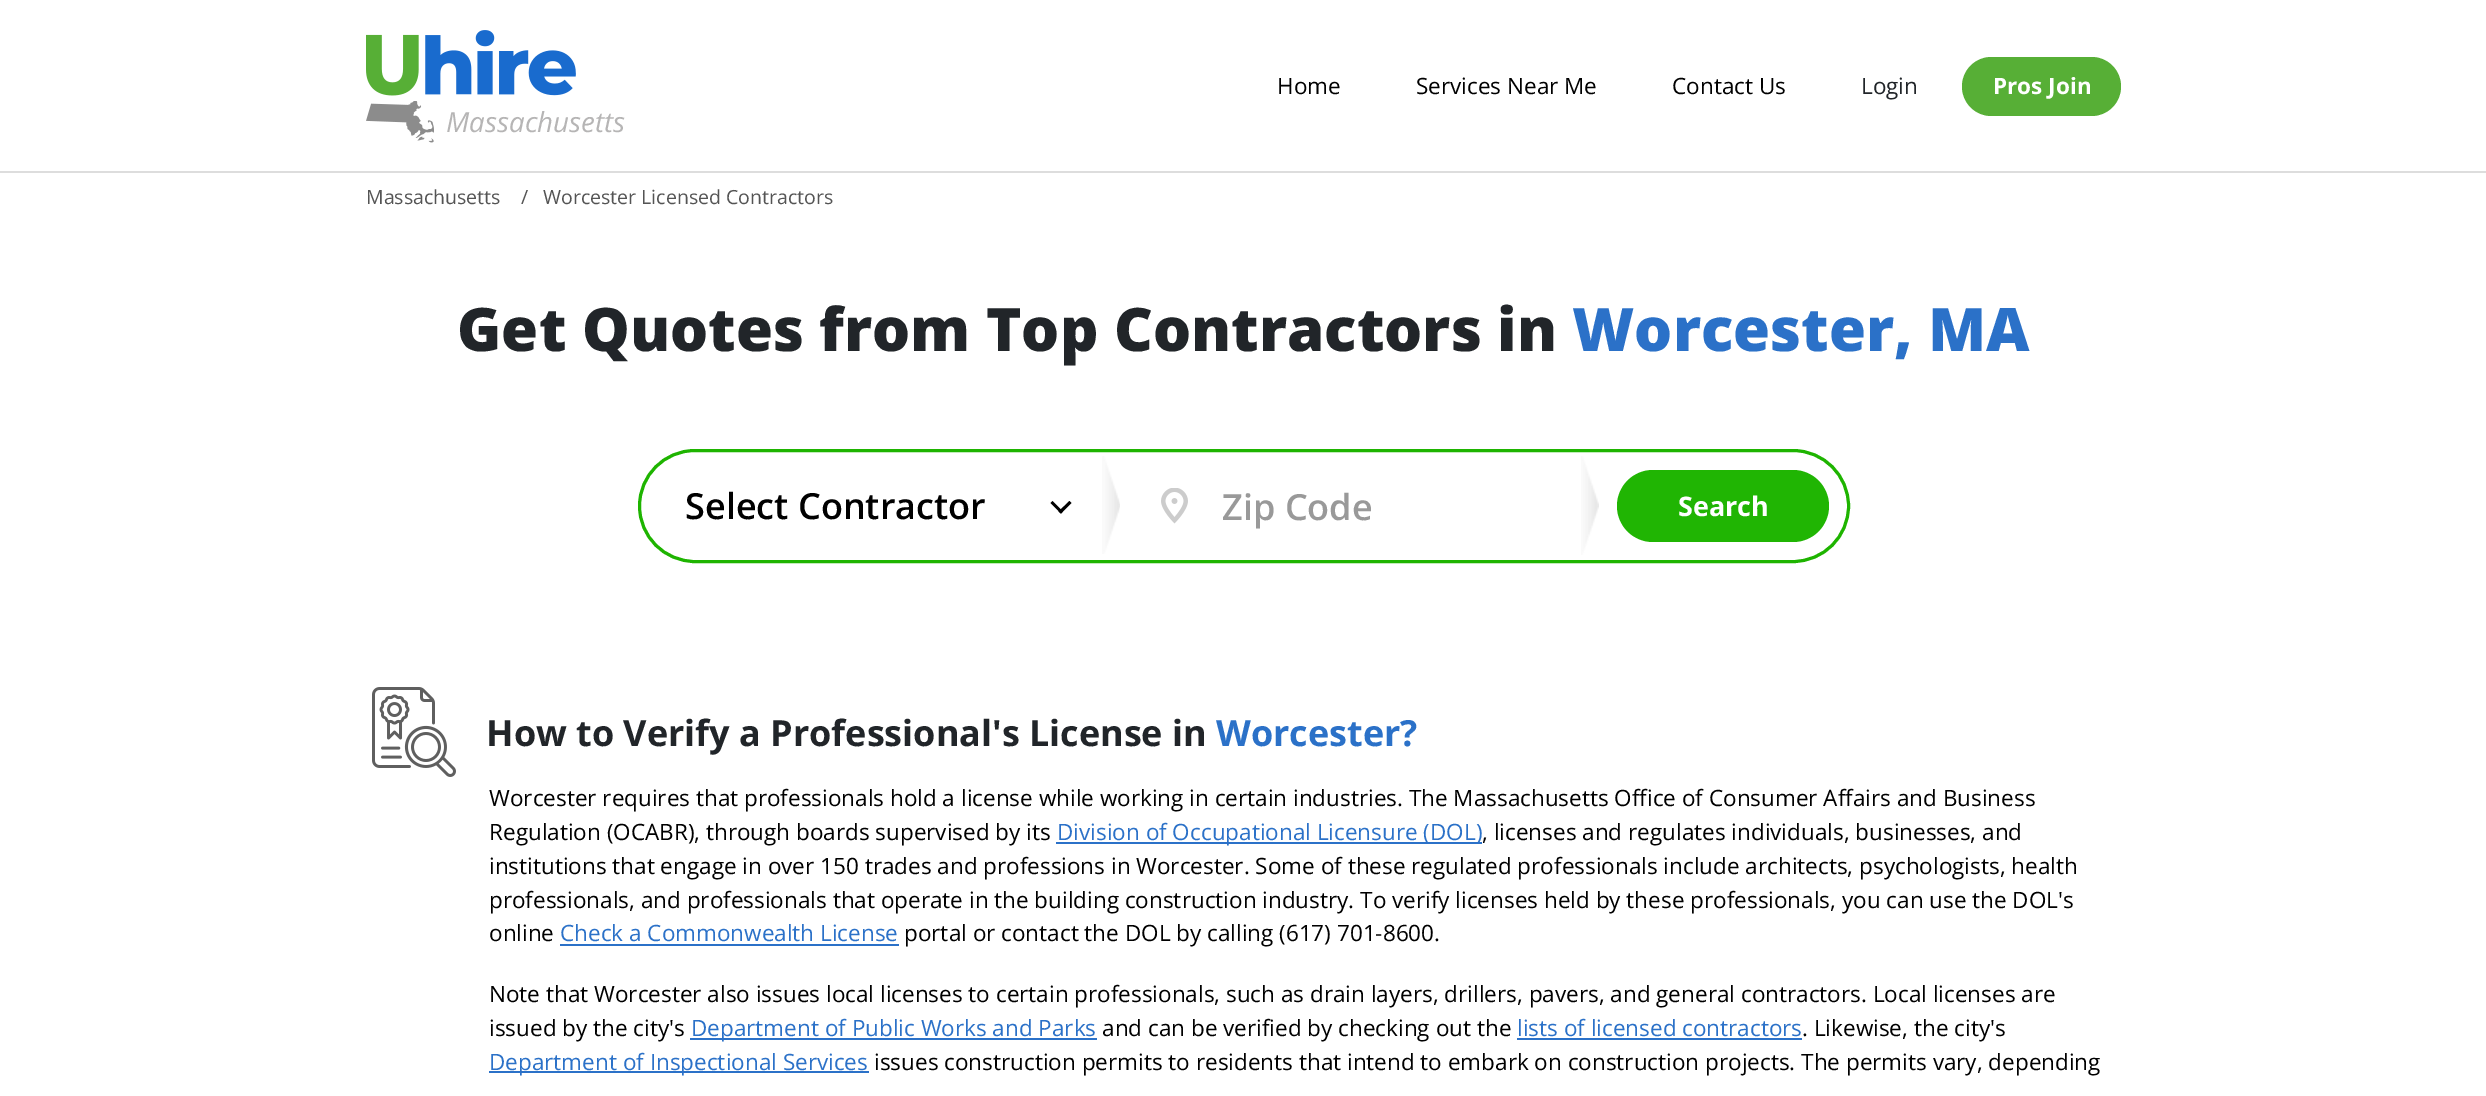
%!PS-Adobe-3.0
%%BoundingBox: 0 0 2486 1096
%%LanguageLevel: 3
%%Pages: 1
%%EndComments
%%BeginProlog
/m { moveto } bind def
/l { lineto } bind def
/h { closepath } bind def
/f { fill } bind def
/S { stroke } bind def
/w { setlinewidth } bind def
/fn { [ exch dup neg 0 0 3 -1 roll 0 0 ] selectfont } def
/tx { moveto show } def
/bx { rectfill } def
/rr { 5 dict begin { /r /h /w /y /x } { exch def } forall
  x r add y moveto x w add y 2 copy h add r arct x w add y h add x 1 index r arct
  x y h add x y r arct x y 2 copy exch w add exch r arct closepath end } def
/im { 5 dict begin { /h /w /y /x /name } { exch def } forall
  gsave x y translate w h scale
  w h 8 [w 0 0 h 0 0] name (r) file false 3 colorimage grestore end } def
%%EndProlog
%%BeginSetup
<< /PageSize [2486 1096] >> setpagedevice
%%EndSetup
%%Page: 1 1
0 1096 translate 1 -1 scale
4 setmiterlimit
1 setgray
0 0 2486 1096 bx
0.867 setgray
0 171 2486 2 bx
/OpenSans-Regular 22.5 fn
0 setgray
(Home) 1277 94 tx
(Services Near Me) 1416 94 tx
(Contact Us) 1672 94 tx
0.129 0.145 0.161 setrgbcolor
(Login) 1861 94 tx
0.341 0.686 0.212 setrgbcolor
1962 57 159 59 29.5 rr f
/OpenSans-Bold 22.5 fn
1 setgray
(Pros Join) 1993 94 tx
(image0.raw) 366 30 210 66 im
(image1.raw) 366 101 68 42 im
/OpenSans-Italic 27.75 fn
0.714 0.71 0.71 setrgbcolor
(Massachusetts) 446 132 tx
/OpenSans-Regular 19.5 fn
0.329 setgray
(Massachusetts) 366 204 tx
(/) 521 204 tx
(Worcester Licensed Contractors) 543 204 tx
/OpenSans-ExtraBold 60 fn
0.129 0.145 0.161 setrgbcolor
(Get Quotes from Top Contractors in) 457 351 tx
0.169 0.443 0.784 setrgbcolor
(Worcester, MA) 1572 351 tx
0.118 0.706 0 setrgbcolor
3 w
639.5 450.5 1209 111 55.5 rr S
(image2.raw) 1102 456 18 98 im
/OpenSans-SemiBold 36 fn
0 setgray
(Select Contractor) 685 519 tx
1069.5 501 m 1071.5 503 l 1061 513.5 l 1058.5 511.5 l h f
1052.5 501 m 1063 511.5 l 1061 513.5 l 1050.5 503 l h f
(image3.raw) 1161 488 27 36 im
(image4.raw) 1581 456 18 99 im
0.6 setgray
(Zip Code) 1222 520 tx
0.125 0.71 0.012 setrgbcolor
1617 470 212 72 36 rr f
/OpenSans-Bold 27 fn
1 setgray
(Search) 1678 516 tx
(image5.raw) 372 687 84 90 im
/OpenSans-Bold 36 fn
0.129 0.145 0.161 setrgbcolor
(How to Verify a Professional's License in) 486 746 tx
0.169 0.443 0.784 setrgbcolor
(Worcester?) 1216 746 tx
/OpenSans-Regular 22.5 fn
0 setgray
(Worcester requires that professionals hold a license while working in certain industries. The Massachusetts Office of Consumer Affairs and Business) 489 806 tx
(Regulation \(OCABR\), through boards supervised by its) 489 840 tx
0.169 0.443 0.784 setrgbcolor
1056 842 426 2 bx
(Division of Occupational Licensure \(DOL\)) 1057 840 tx
0 setgray
(, licenses and regulates individuals, businesses, and) 1482 840 tx
(institutions that engage in over 150 trades and professions in Worcester. Some of these regulated professionals include architects, psychologists, health) 489 874 tx
(professionals, and professionals that operate in the building construction industry. To verify licenses held by these professionals, you can use the DOL's) 489 908 tx
(online) 489 941 tx
0.169 0.443 0.784 setrgbcolor
(Check a Commonwealth License) 560 941 tx
560 944 339 2 bx
0 setgray
(portal or contact the DOL by calling \(617\) 701-8600.) 904 941 tx
(Note that Worcester also issues local licenses to certain professionals, such as drain layers, drillers, pavers, and general contractors. Local licenses are) 489 1002 tx
(issued by the city's) 489 1036 tx
0.169 0.443 0.784 setrgbcolor
690 1038 407 2 bx
(Department of Public Works and Parks) 691 1036 tx
0 setgray
(and can be verified by checking out the) 1102 1036 tx
0.169 0.443 0.784 setrgbcolor
(lists of licensed contractors) 1517 1036 tx
1517 1038 285 2 bx
0 setgray
(. Likewise, the city's) 1802 1036 tx
0.169 0.443 0.784 setrgbcolor
489 1071 380 2 bx
(Department of Inspectional Services) 489 1070 tx
0 setgray
(issues construction permits to residents that intend to embark on construction projects. The permits vary, depending) 874 1070 tx
showpage
%%EOF
